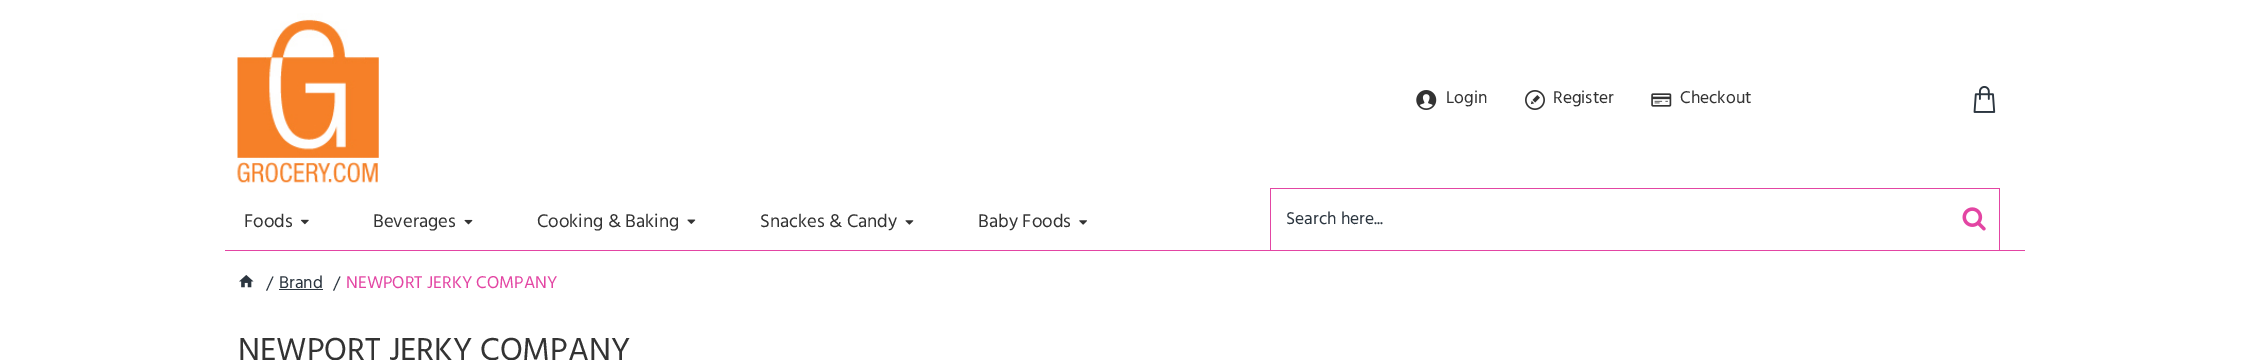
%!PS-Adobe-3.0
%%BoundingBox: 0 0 2250 360
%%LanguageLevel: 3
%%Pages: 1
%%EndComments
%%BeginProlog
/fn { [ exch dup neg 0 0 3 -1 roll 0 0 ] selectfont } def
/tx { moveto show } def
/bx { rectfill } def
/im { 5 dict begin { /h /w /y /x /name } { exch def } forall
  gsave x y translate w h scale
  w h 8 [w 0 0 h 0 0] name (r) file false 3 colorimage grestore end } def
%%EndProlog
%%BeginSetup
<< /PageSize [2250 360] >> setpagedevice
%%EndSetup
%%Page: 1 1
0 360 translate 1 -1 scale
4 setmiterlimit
1 setgray
0 0 2250 360 bx
0.89 0.271 0.639 setrgbcolor
225 250 1800 1 bx
(image0.raw) 237 13 142 170 im
(image1.raw) 1416 90 21 20 im
/Hind-Regular 17.5 fn
0.2 setgray
(Login) 1446 103 tx
(image2.raw) 1525 90 20 20 im
(Register) 1553 103 tx
(image3.raw) 1651 93 21 14 im
(Checkout) 1680 103 tx
(image4.raw) 1973 86 23 27 im
/Hind-Regular 18.75 fn
(Foods) 244 227 tx
(image5.raw) 300 219 9 6 im
(Beverages) 373 227 tx
(image6.raw) 464 219 9 6 im
(Cooking & Baking) 537 227 tx
(image7.raw) 687 219 9 5 im
(Snackes & Candy) 760 227 tx
(image8.raw) 905 220 9 5 im
(Baby Foods) 978 227 tx
(image9.raw) 1079 220 8 5 im
0.89 0.271 0.639 setrgbcolor
1270 188 730 1 bx
1999 188 1 62 bx
1270 188 1 62 bx
/Hind-Regular 17.5 fn
0.173 0.212 0.251 setrgbcolor
(Search here...) 1286 224 tx
(image10.raw) 1962 207 24 24 im
(image11.raw) 239 275 15 13 im
(/) 266 289 tx
(Brand) 279 288 tx
279 289 44 1 bx
(/) 333 289 tx
0.89 0.271 0.639 setrgbcolor
(NEWPORT JERKY COMPANY) 346 288 tx
/Hind-Regular 32.5 fn
0.2 setgray
(NEWPORT JERKY COMPANY) 238 360 tx
showpage
%%EOF
